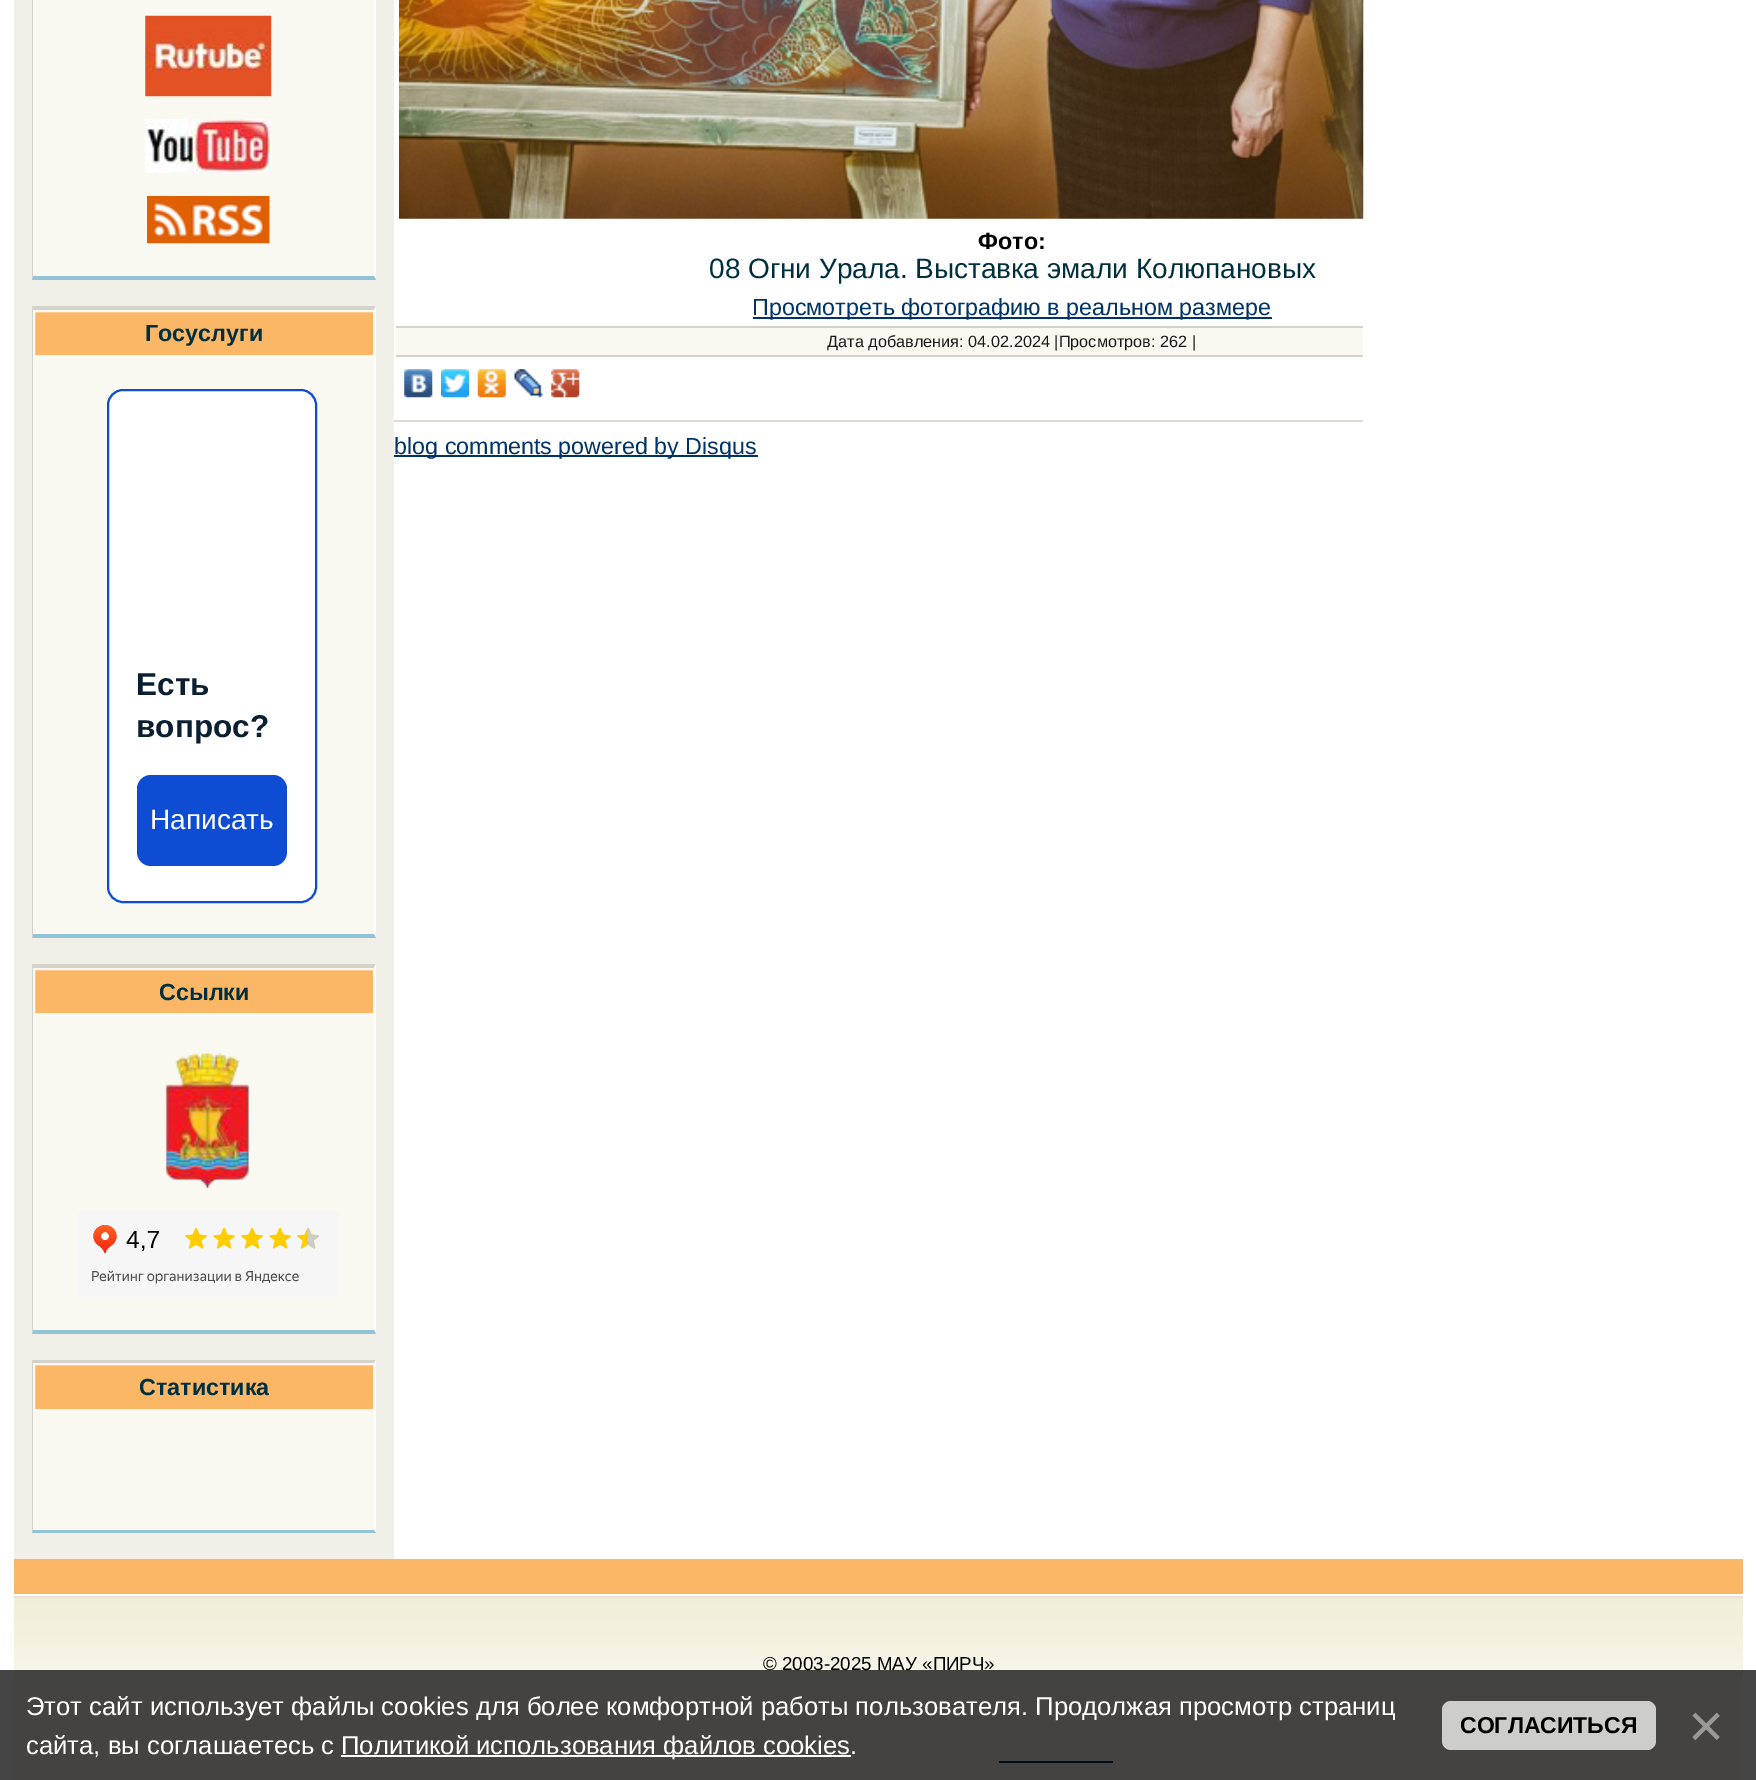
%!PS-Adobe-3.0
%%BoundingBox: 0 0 1756 1780
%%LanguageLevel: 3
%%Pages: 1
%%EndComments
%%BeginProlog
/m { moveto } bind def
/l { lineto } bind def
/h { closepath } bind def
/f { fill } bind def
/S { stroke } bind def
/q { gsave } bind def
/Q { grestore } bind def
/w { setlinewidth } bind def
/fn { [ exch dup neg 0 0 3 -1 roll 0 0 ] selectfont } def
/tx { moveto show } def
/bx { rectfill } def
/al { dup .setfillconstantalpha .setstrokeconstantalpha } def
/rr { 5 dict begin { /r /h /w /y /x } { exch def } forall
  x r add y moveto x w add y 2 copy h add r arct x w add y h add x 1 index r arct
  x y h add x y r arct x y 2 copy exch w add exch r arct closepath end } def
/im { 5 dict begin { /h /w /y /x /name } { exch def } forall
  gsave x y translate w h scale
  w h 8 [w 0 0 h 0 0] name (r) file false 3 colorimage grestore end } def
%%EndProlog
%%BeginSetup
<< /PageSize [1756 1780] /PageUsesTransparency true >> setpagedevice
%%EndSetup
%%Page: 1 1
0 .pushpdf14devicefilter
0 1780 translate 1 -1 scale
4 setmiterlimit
1 setgray
0 0 1756 1780 bx
0.945 0.941 0.91 setrgbcolor
14 0 380 1559 bx
0.98 0.976 0.945 setrgbcolor
33 0 342 277 bx
1 setgray
376 -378 m 376 280 l 374 276 l 374 -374 l h f
0.576 0.765 0.843 setrgbcolor
376 280 m 32 280 l 33 276 l 374 276 l h f
0.827 0.824 0.796 setrgbcolor
32 280 m 32 -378 l 33 -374 l 33 276 l h f
(image0.raw) 145 15 127 82 im
(image1.raw) 145 119 127 54 im
(image2.raw) 147 196 123 48 im
0.98 0.976 0.945 setrgbcolor
33 357 342 578 bx
0.827 0.824 0.796 setrgbcolor
32 306 m 376 306 l 374 310 l 33 310 l h f
1 setgray
376 306 m 376 938 l 374 934 l 374 310 l h f
0.576 0.765 0.843 setrgbcolor
376 938 m 32 938 l 33 934 l 374 934 l h f
0.827 0.824 0.796 setrgbcolor
32 938 m 32 306 l 33 310 l 33 934 l h f
0.984 0.718 0.4 setrgbcolor
34 311 m 374 311 l 374 356 l 34 356 l h q f Q
0.98 0.976 0.945 setrgbcolor
2 w
S
/LiberationSans-Bold 23.3 fn
0 0.188 0.251 setrgbcolor
(Госуслуги) 145 341 tx
1 setgray
108 390 208 512 15 rr q f Q
0.051 0.298 0.827 setrgbcolor
S
/LiberationSans-Bold 31.5 fn
0.043 0.122 0.2 setrgbcolor
(Есть) 136 695 tx
(вопрос?) 136 737 tx
0.051 0.298 0.827 setrgbcolor
137 775 150 91 14 rr f
/LiberationSans-Regular 28 fn
1 setgray
(Написать) 150 829 tx
0.98 0.976 0.945 setrgbcolor
33 1015 341 315 bx
0.827 0.824 0.796 setrgbcolor
32 964 m 376 964 l 374 968 l 33 968 l h f
1 setgray
376 964 m 376 1334 l 374 1330 l 374 968 l h f
0.576 0.765 0.843 setrgbcolor
376 1334 m 32 1334 l 33 1330 l 374 1330 l h f
0.827 0.824 0.796 setrgbcolor
32 1334 m 32 964 l 33 968 l 33 1330 l h f
0.984 0.718 0.4 setrgbcolor
34 969 m 374 969 l 374 1014 l 34 1014 l h q f Q
0.98 0.976 0.945 setrgbcolor
S
/LiberationSans-Bold 23.3 fn
0 0.188 0.251 setrgbcolor
(Ссылки) 159 1000 tx
(image3.raw) 165 1053 86 136 im
(image4.raw) 77 1211 262 87 im
0.98 0.976 0.945 setrgbcolor
33 1411 341 119 bx
0.827 0.824 0.796 setrgbcolor
32 1360 m 376 1360 l 374 1363 l 33 1363 l h f
1 setgray
376 1360 m 376 1533 l 374 1530 l 374 1363 l h f
0.576 0.765 0.843 setrgbcolor
376 1533 m 32 1533 l 33 1530 l 374 1530 l h f
0.827 0.824 0.796 setrgbcolor
32 1533 m 32 1360 l 33 1363 l 33 1530 l h f
0.984 0.718 0.4 setrgbcolor
34 1364 m 374 1364 l 374 1410 l 34 1410 l h q f Q
0.98 0.976 0.945 setrgbcolor
S
0 0.188 0.251 setrgbcolor
(Статистика) 139 1395 tx
(image5.raw) 399 0 965 219 im
0 setgray
(Фото:) 978 249 tx
/LiberationSans-Regular 28 fn
0 0.188 0.251 setrgbcolor
(08 Огни Урала. Выставка эмали Колюпановых) 709 278 tx
0 0.2 0.4 setrgbcolor
753 317 519 2 bx
/LiberationSans-Regular 23.3 fn
(Просмотреть фотографию в реальном размере) 752 315 tx
0.98 0.976 0.945 setrgbcolor
396 328 967 27 bx
0.827 0.824 0.796 setrgbcolor
396 326 967 2 bx
396 355 967 2 bx
/LiberationSans-Regular 16.3 fn
0.102 setgray
(Дата добавления: 04.02.2024 |Просмотров: 262 |) 827 347 tx
(image6.raw) 404 369 29 29 im
(image7.raw) 441 369 28 29 im
(image8.raw) 477 369 29 29 im
(image9.raw) 514 369 29 29 im
(image10.raw) 551 369 29 29 im
0.863 0.859 0.831 setrgbcolor
394 420 969 2 bx
0 0.2 0.4 setrgbcolor
394 455 364 2 bx
/LiberationSans-Regular 23.3 fn
(blog comments powered by Disqus) 394 454 tx
0.984 0.718 0.4 setrgbcolor
14 1559 1729 35 bx
0.98 0.976 0.945 setrgbcolor
14 1594 1729 186 bx
(image11.raw) 14 1594 1729 96 im
/LiberationSans-Regular 18.75 fn
0 setgray
(© 2003-2025 МАУ «ПИРЧ») 763 1670 tx
0 0.2 0.4 setrgbcolor
999 1761 114 2 bx
0.73 al
0 setgray
0 1670 1756 110 bx
/LiberationSans-Regular 25.67 fn
1 al
1 setgray
(Этот сайт использует файлы cookies для более комфортной работы пользователя. Продолжая просмотр страниц) 26 1715 tx
(сайта, вы соглашаетесь с) 26 1754 tx
341 1755 510 2 bx
(Политикой использования файлов cookies) 341 1754 tx
(.) 850 1754 tx
0.804 0.804 0.8 setrgbcolor
1442 1701 214 49 9 rr f
/LiberationSans-Bold 23 fn
0 setgray
(СОГЛАСИТЬСЯ) 1460 1733 tx
/LiberationSans-Regular 62 fn
0.6 setgray
(×) 1688 1747 tx
.poppdf14devicefilter showpage
%%EOF
